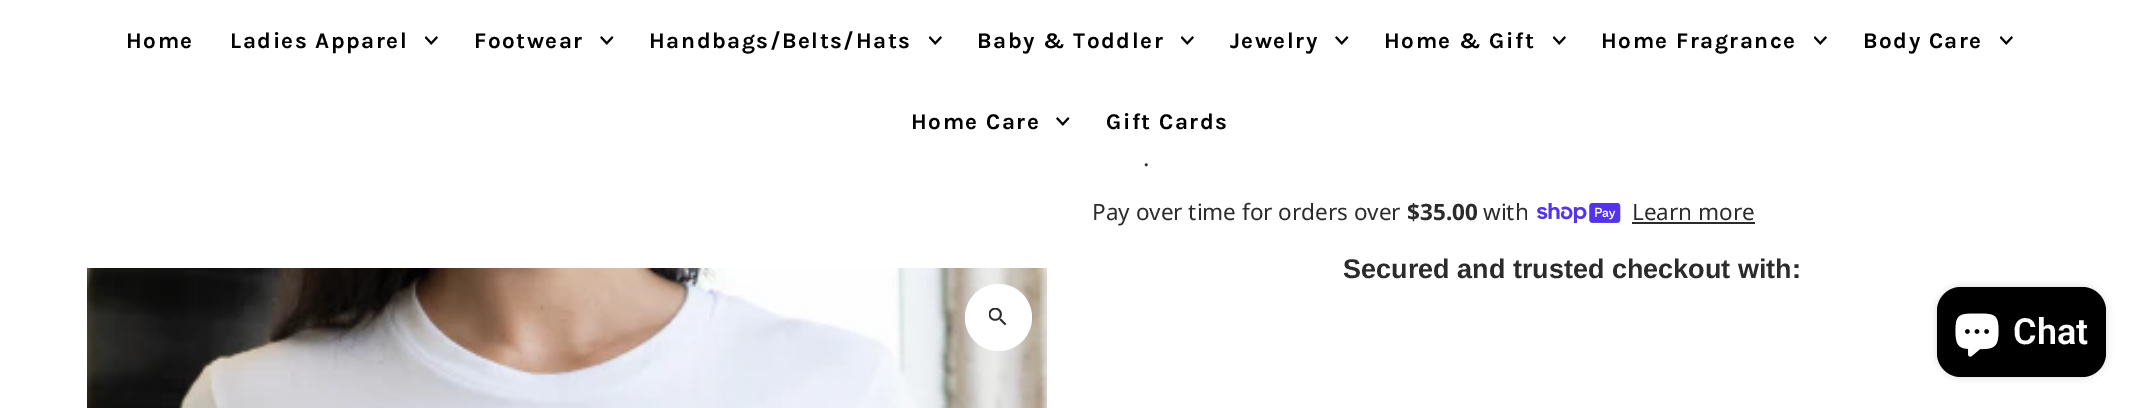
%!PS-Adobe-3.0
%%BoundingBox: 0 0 2138 408
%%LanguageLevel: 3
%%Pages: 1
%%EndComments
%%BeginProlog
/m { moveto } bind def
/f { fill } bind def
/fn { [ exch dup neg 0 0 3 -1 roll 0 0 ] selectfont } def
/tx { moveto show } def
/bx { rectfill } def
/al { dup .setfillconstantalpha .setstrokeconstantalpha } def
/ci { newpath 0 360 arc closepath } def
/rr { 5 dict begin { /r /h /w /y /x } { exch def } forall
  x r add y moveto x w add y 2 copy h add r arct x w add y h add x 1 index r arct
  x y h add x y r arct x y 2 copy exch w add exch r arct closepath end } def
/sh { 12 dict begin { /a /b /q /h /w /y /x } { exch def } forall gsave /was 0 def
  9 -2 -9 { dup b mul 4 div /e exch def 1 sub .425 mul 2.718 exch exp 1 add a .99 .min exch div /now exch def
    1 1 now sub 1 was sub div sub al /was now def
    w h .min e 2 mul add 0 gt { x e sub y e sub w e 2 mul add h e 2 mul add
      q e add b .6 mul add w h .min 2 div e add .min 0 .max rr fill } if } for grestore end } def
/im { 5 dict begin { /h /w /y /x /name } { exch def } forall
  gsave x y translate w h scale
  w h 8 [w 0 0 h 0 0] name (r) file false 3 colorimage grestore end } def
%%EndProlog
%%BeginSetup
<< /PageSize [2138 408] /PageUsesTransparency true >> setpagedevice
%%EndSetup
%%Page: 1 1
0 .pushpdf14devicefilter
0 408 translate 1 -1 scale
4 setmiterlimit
1 setgray
0 0 2138 408 bx
/Karla-Bold 22.5 fn
0 setgray
126 48 m 1.5 0 (Home) ashow
230 48 m 1.5 0 (Ladies Apparel) ashow
(image0.raw) 425 36 13 9 im
474 48 m 1.5 0 (Footwear) ashow
(image1.raw) 600 36 14 9 im
649 48 m 1.5 0 (Handbags/Belts/Hats) ashow
(image0.raw) 929 36 13 9 im
977 48 m 1.5 0 (Baby & Toddler) ashow
(image0.raw) 1181 36 13 9 im
1230 48 m 1.5 0 (Jewelry) ashow
(image1.raw) 1335 36 14 9 im
1384 48 m 1.5 0 (Home & Gift) ashow
(image0.raw) 1553 36 13 9 im
1601 48 m 1.5 0 (Home Fragrance) ashow
(image0.raw) 1814 36 13 9 im
1863 48 m 1.5 0 (Body Care) ashow
(image0.raw) 2000 36 13 9 im
911 129 m 1.5 0 (Home Care) ashow
(image1.raw) 1056 117 14 9 im
1106 129 m 1.5 0 (Gift Cards) ashow
/Karla-Regular 26 fn
0.169 setgray
(.) 1144 166 tx
/NotoSans-Regular 22.5 fn
(Pay over time for orders over) 1092 220 tx
/NotoSans-Bold 22.5 fn
($35.00) 1407 220 tx
/NotoSans-Regular 22.5 fn
(with) 1483 220 tx
(image2.raw) 1537 203 84 21 im
(Learn more) 1632 220 tx
1632 222 123 2 bx
/LiberationSans-Bold 27 fn
(Secured and trusted checkout with:) 1343 278 tx
(image3.raw) 87 268 960 140 im
1 setgray
998.5 317.5 33.5 ci f
(image4.raw) 989 308 18 18 im
0 setgray
1937 287 169 90 24 4 0.15 sh
1937 287 169 90 24 rr f
(image5.raw) 1955 313 44 44 im
/Roboto-SemiBold 36 fn
1 setgray
(Chat) 2013 344 tx
.poppdf14devicefilter showpage
%%EOF
